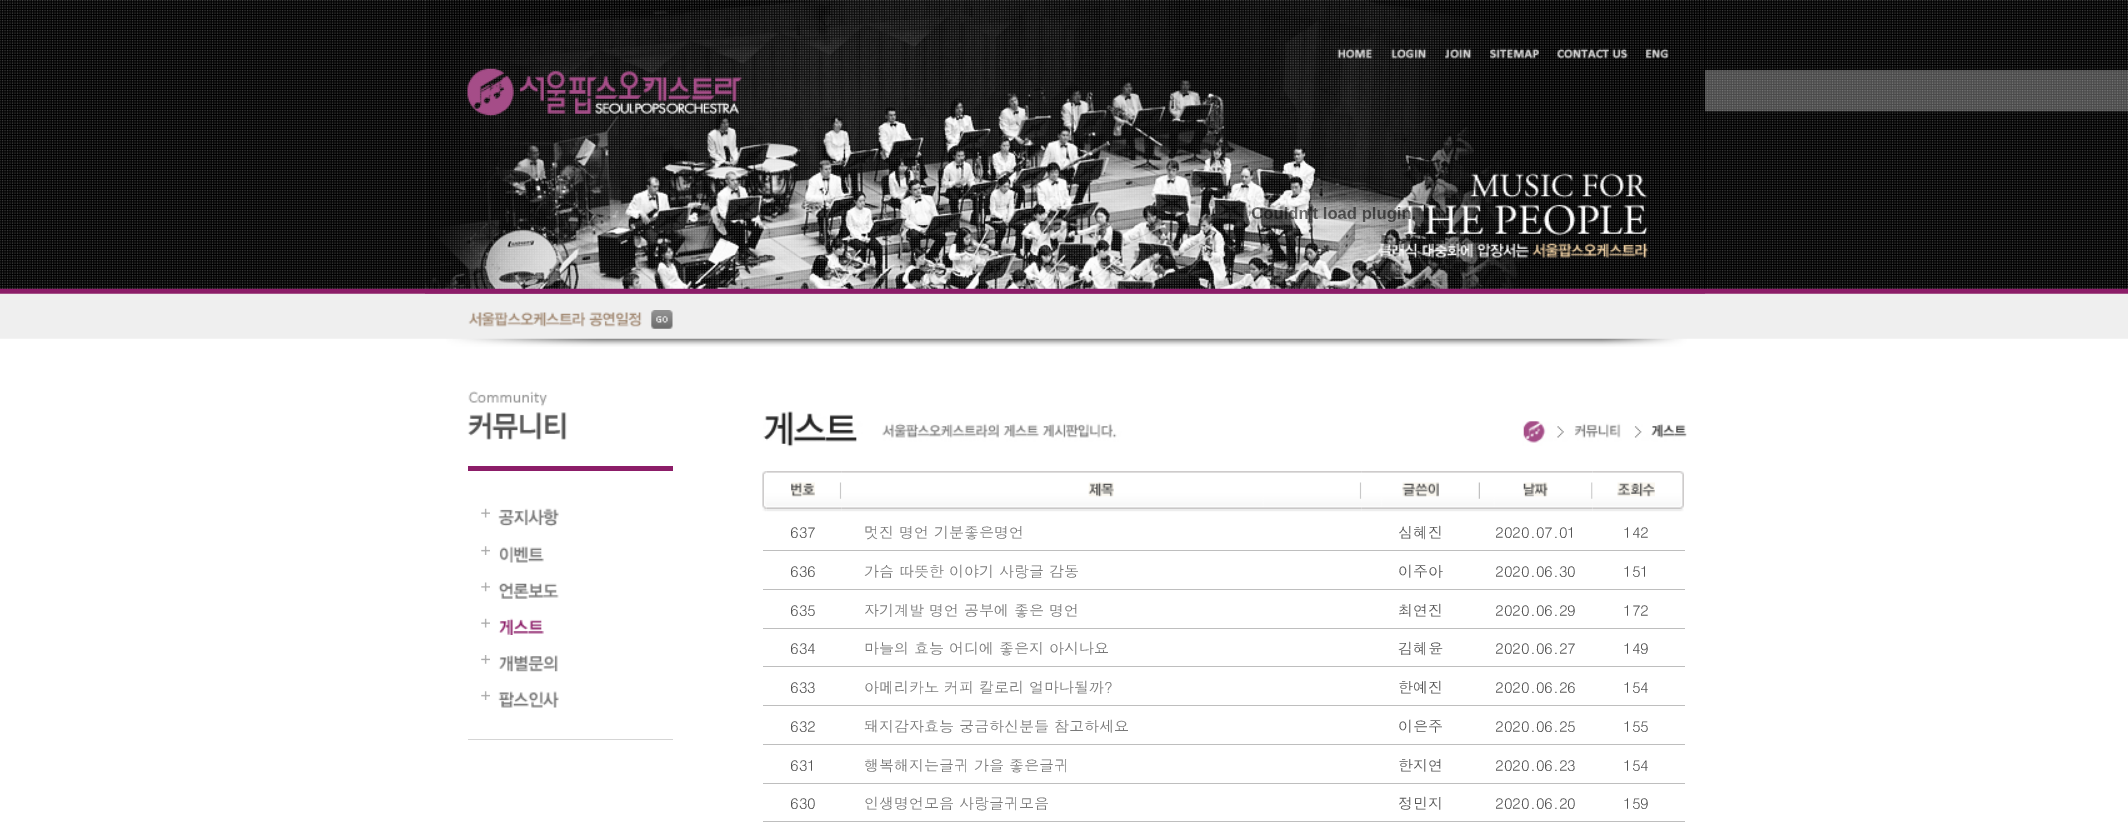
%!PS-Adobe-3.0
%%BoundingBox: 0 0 2128 838
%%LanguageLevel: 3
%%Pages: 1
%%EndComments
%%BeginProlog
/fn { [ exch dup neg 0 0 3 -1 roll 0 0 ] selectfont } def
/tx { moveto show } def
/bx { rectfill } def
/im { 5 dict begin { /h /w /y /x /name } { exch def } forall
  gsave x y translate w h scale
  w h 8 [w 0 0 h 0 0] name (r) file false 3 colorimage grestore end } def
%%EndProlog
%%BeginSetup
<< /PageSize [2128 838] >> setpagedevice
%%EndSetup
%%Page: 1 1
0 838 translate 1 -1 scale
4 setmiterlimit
1 setgray
0 0 2128 838 bx
(image0.raw) 0 0 2128 339 im
(image10.raw) 425 293 1280 54 im
(image1.raw) 425 0 1280 294 im
(image2.raw) 1337 48 36 11 im
(image3.raw) 1391 48 36 11 im
(image4.raw) 1445 48 27 11 im
(image5.raw) 1490 48 49 11 im
(image6.raw) 1557 48 71 11 im
(image7.raw) 1646 48 23 11 im
(image8.raw) 467 68 276 49 im
(image9.raw) 1243 202 181 23 im
(image11.raw) 468 310 205 19 im
(image12.raw) 467 391 100 49 im
0.549 0.114 0.408 setrgbcolor
468 466 205 5 bx
0.835 setgray
468 739 205 1 bx
(image13.raw) 481 508 9 10 im
(image14.raw) 498 508 61 19 im
(image15.raw) 481 546 9 9 im
(image16.raw) 499 546 45 17 im
(image17.raw) 481 582 9 10 im
(image18.raw) 498 582 61 17 im
(image13.raw) 481 618 9 10 im
(image19.raw) 498 618 46 17 im
(image20.raw) 481 655 9 9 im
(image21.raw) 498 655 60 17 im
(image15.raw) 481 691 9 9 im
(image22.raw) 498 691 61 17 im
(image23.raw) 763 411 924 36 im
(image24.raw) 762 471 4 41 im
(image25.raw) 766 471 76 41 im
(image26.raw) 791 482 24 15 im
(image27.raw) 841 471 521 41 im
(image28.raw) 1088 482 26 15 im
(image29.raw) 1361 471 119 41 im
(image30.raw) 1402 482 37 15 im
(image31.raw) 1480 471 113 41 im
(image32.raw) 1523 482 25 15 im
(image33.raw) 1592 471 88 41 im
(image34.raw) 1617 482 38 15 im
(image35.raw) 1680 471 4 41 im
/Dotum-Regular 15 fn
0.333 setgray
(637) 790 538 tx
0.475 setgray
(멋진 명언 기분좋은명언) 864 538 tx
0.333 setgray
(심혜진) 1398 538 tx
(2020.07.01) 1495 538 tx
(142) 1623 538 tx
0.745 setgray
763 550 922 1 bx
0.333 setgray
(636) 790 577 tx
0.475 setgray
(가슴 따뜻한 이야기 사랑글 감동) 864 577 tx
0.333 setgray
(이주아) 1398 577 tx
(2020.06.30) 1495 577 tx
(151) 1623 577 tx
0.745 setgray
763 589 922 1 bx
0.333 setgray
(635) 790 616 tx
0.475 setgray
(자기계발 명언 공부에 좋은 명언) 864 616 tx
0.333 setgray
(최연진) 1398 616 tx
(2020.06.29) 1495 616 tx
(172) 1623 616 tx
0.745 setgray
763 628 922 1 bx
0.333 setgray
(634) 790 654 tx
0.475 setgray
(마늘의 효능 어디에 좋은지 아시나요) 864 654 tx
0.333 setgray
(김혜윤) 1398 654 tx
(2020.06.27) 1495 654 tx
(149) 1623 654 tx
0.745 setgray
763 666 922 1 bx
0.333 setgray
(633) 790 693 tx
0.475 setgray
(아메리카노 커피 칼로리 얼마나될까?) 864 693 tx
0.333 setgray
(한예진) 1398 693 tx
(2020.06.26) 1495 693 tx
(154) 1623 693 tx
0.745 setgray
763 705 922 1 bx
0.333 setgray
(632) 790 732 tx
0.475 setgray
(돼지감자효능 궁금하신분들 참고하세요) 864 732 tx
0.333 setgray
(이은주) 1398 732 tx
(2020.06.25) 1495 732 tx
(155) 1623 732 tx
0.745 setgray
763 744 922 1 bx
0.333 setgray
(631) 790 771 tx
0.475 setgray
(행복해지는글귀 가을 좋은글귀) 864 771 tx
0.333 setgray
(한지연) 1398 771 tx
(2020.06.23) 1495 771 tx
(154) 1623 771 tx
0.745 setgray
763 783 922 1 bx
0.333 setgray
(630) 790 809 tx
0.475 setgray
(인생명언모음 사랑글귀모음) 864 809 tx
0.333 setgray
(정민지) 1398 809 tx
(2020.06.20) 1495 809 tx
(159) 1623 809 tx
0.745 setgray
763 821 922 1 bx
showpage
%%EOF
